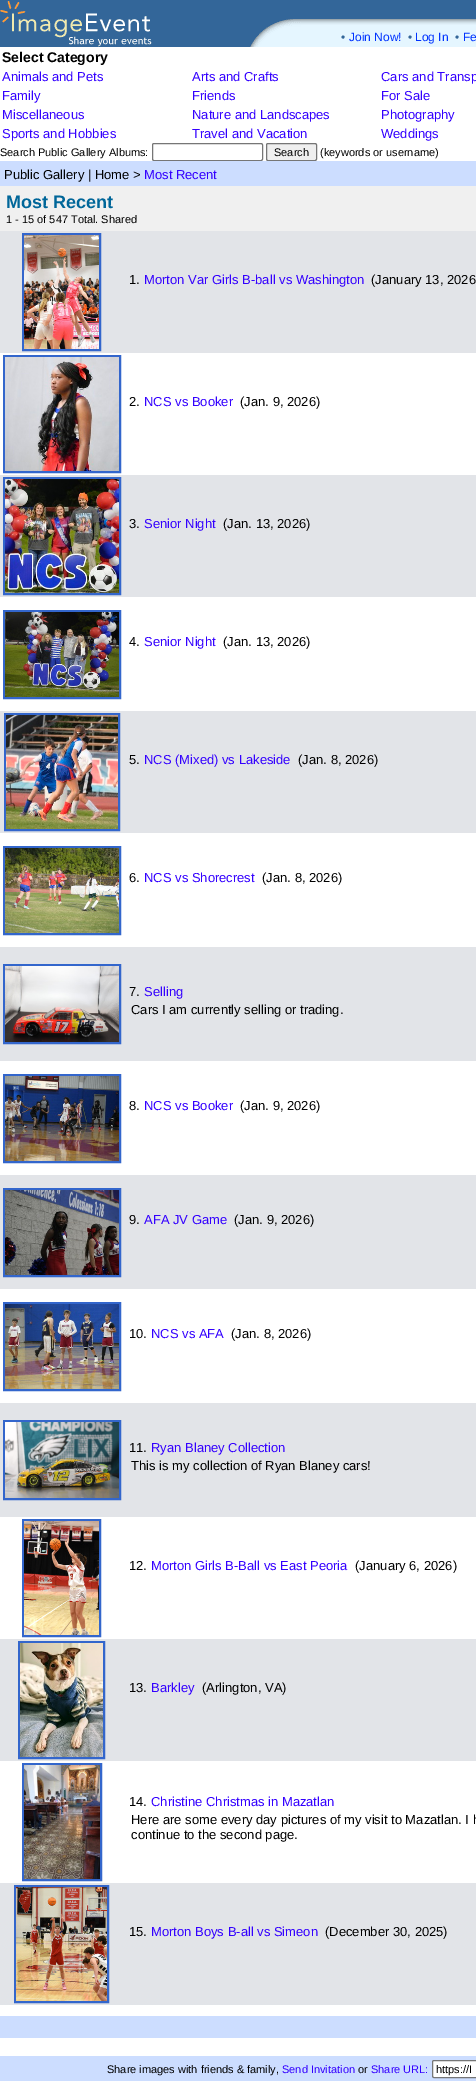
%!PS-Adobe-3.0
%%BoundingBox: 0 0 476 2081
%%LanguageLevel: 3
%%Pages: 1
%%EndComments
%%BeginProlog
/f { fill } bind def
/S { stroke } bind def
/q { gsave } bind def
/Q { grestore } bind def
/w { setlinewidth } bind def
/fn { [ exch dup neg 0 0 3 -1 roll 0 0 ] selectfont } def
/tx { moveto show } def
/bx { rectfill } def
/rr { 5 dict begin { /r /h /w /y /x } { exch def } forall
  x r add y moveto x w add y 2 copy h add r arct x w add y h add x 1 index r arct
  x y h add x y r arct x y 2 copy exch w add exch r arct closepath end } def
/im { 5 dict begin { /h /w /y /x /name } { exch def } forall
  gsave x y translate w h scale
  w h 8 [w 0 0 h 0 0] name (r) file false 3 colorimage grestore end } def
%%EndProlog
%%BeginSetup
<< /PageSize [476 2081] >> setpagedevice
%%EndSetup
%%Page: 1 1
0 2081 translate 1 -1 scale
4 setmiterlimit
1 setgray
0 0 476 2081 bx
0.2 0.4 0.6 setrgbcolor
0 0 243 1 bx
(image0.raw) 0 1 243 46 im
243 0 233 19 bx
(image1.raw) 243 19 58 28 im
0.898 0.965 1 setrgbcolor
301 25 175 22 bx
(image2.raw) 301 19 175 6 im
/LiberationSans-Regular 12 fn
0.2 0.4 0.6 setrgbcolor
(•) 341 41 tx
0 0.2 1 setrgbcolor
(Join Now!) 349 41 tx
0.2 0.4 0.6 setrgbcolor
(•) 408 41 tx
0 0.2 1 setrgbcolor
(Log In) 415 41 tx
0.2 0.4 0.6 setrgbcolor
(•) 455 41 tx
0 0.2 1 setrgbcolor
(Fe) 463 41 tx
/LiberationSans-Bold 14 fn
0 setgray
(Select Category) 2 62 tx
/LiberationSans-Regular 13 fn
0.2 0 1 setrgbcolor
(Animals and Pets) 2 81 tx
(Arts and Crafts) 192 81 tx
(Cars and Transp) 381 81 tx
(Family) 2 100 tx
(Friends) 192 100 tx
(For Sale) 381 100 tx
(Miscellaneous) 2 119 tx
(Nature and Landscapes) 192 119 tx
(Photography) 381 119 tx
(Sports and Hobbies) 2 138 tx
(Travel and Vacation) 192 138 tx
(Weddings) 381 138 tx
/LiberationSans-Regular 11 fn
0 setgray
(Search Public Gallery Albums:) 0 156 tx
0.463 setgray
152.5 143.5 110 17 1.5 rr S
0.937 setgray
266.5 143.5 50 17 1.5 rr q f Q
0.463 setgray
S
0 setgray
(Search) 274 156 tx
(\(keywords or username\)) 320 156 tx
0.8 0.867 1 setrgbcolor
0 161 476 25 bx
/LiberationSans-Regular 13 fn
0 setgray
(Public Gallery | Home >) 4 179 tx
0.2 0 1 setrgbcolor
(Most Recent) 144 179 tx
0.941 setgray
0 186 476 45 bx
/LiberationSans-Bold 18 fn
0 0.4 0.6 setrgbcolor
(Most Recent) 6 208 tx
/LiberationSans-Regular 11 fn
0 setgray
(1 - 15 of 547 Total. Shared) 6 223 tx
0.886 0.894 0.91 setrgbcolor
0 231 476 122 bx
0.2 0.4 0.8 setrgbcolor
2 w
23 234 77 116 rectstroke
(image3.raw) 24 235 75 114 im
/LiberationSans-Regular 13 fn
0 setgray
(1.) 129 284 tx
0.2 0 1 setrgbcolor
(Morton Var Girls B-ball vs Washington) 144 284 tx
0 setgray
(\(January 13, 2026) 371 284 tx
0.2 0.4 0.8 setrgbcolor
4 356 116 116 rectstroke
(image4.raw) 5 357 114 114 im
0 setgray
(2.) 129 406 tx
0.2 0 1 setrgbcolor
(NCS vs Booker) 144 406 tx
0 setgray
(\(Jan. 9, 2026\)) 240 406 tx
0.886 0.894 0.91 setrgbcolor
0 475 476 122 bx
0.2 0.4 0.8 setrgbcolor
4 478 116 116 rectstroke
(image5.raw) 5 479 114 114 im
0 setgray
(3.) 129 528 tx
0.2 0 1 setrgbcolor
(Senior Night) 144 528 tx
0 setgray
(\(Jan. 13, 2026\)) 223 528 tx
0.2 0.4 0.8 setrgbcolor
4 611 116 87 rectstroke
(image6.raw) 5 612 114 85 im
0 setgray
(4.) 129 646 tx
0.2 0 1 setrgbcolor
(Senior Night) 144 646 tx
0 setgray
(\(Jan. 13, 2026\)) 223 646 tx
0.886 0.894 0.91 setrgbcolor
0 711 476 122 bx
0.2 0.4 0.8 setrgbcolor
5 714 114 116 rectstroke
(image7.raw) 6 715 112 114 im
0 setgray
(5.) 129 764 tx
0.2 0 1 setrgbcolor
(NCS \(Mixed\) vs Lakeside) 144 764 tx
0 setgray
(\(Jan. 8, 2026\)) 298 764 tx
0.2 0.4 0.8 setrgbcolor
4 847 116 87 rectstroke
(image8.raw) 5 848 114 85 im
0 setgray
(6.) 129 882 tx
0.2 0 1 setrgbcolor
(NCS vs Shorecrest) 144 882 tx
0 setgray
(\(Jan. 8, 2026\)) 262 882 tx
0.886 0.894 0.91 setrgbcolor
0 947 476 114 bx
0.2 0.4 0.8 setrgbcolor
4 965 116 78 rectstroke
(image9.raw) 5 966 114 76 im
0 setgray
(7.) 129 996 tx
0.2 0 1 setrgbcolor
(Selling) 144 996 tx
0 setgray
(Cars I am currently selling or trading.) 131 1014 tx
0.2 0.4 0.8 setrgbcolor
4 1075 116 87 rectstroke
(image10.raw) 5 1076 114 85 im
0 setgray
(8.) 129 1110 tx
0.2 0 1 setrgbcolor
(NCS vs Booker) 144 1110 tx
0 setgray
(\(Jan. 9, 2026\)) 240 1110 tx
0.886 0.894 0.91 setrgbcolor
0 1175 476 114 bx
0.2 0.4 0.8 setrgbcolor
4 1189 116 87 rectstroke
(image11.raw) 5 1190 114 85 im
0 setgray
(9.) 129 1224 tx
0.2 0 1 setrgbcolor
(AFA JV Game) 144 1224 tx
0 setgray
(\(Jan. 9, 2026\)) 234 1224 tx
0.2 0.4 0.8 setrgbcolor
4 1303 116 87 rectstroke
(image12.raw) 5 1304 114 85 im
0 setgray
(10.) 129 1338 tx
0.2 0 1 setrgbcolor
(NCS vs AFA) 151 1338 tx
0 setgray
(\(Jan. 8, 2026\)) 231 1338 tx
0.886 0.894 0.91 setrgbcolor
0 1403 476 114 bx
0.2 0.4 0.8 setrgbcolor
4 1421 116 78 rectstroke
(image13.raw) 5 1422 114 76 im
0 setgray
(11.) 129 1452 tx
0.2 0 1 setrgbcolor
(Ryan Blaney Collection) 151 1452 tx
0 setgray
(This is my collection of Ryan Blaney cars!) 131 1470 tx
0.2 0.4 0.8 setrgbcolor
23 1520 77 116 rectstroke
(image14.raw) 24 1521 75 114 im
0 setgray
(12.) 129 1570 tx
0.2 0 1 setrgbcolor
(Morton Girls B-Ball vs East Peoria) 151 1570 tx
0 setgray
(\(January 6, 2026\)) 355 1570 tx
0.886 0.894 0.91 setrgbcolor
0 1639 476 122 bx
0.2 0.4 0.8 setrgbcolor
19 1642 85 116 rectstroke
(image15.raw) 20 1643 83 114 im
0 setgray
(13.) 129 1692 tx
0.2 0 1 setrgbcolor
(Barkley) 151 1692 tx
0 setgray
(\(Arlington, VA\)) 202 1692 tx
0.2 0.4 0.8 setrgbcolor
23 1764 78 116 rectstroke
(image16.raw) 24 1765 76 114 im
0 setgray
(14.) 129 1806 tx
0.2 0 1 setrgbcolor
(Christine Christmas in Mazatlan) 151 1806 tx
0 setgray
(Here are some every day pictures of my visit to Mazatlan. I h) 131 1824 tx
(continue to the second page.) 131 1839 tx
0.886 0.894 0.91 setrgbcolor
0 1883 476 122 bx
0.2 0.4 0.8 setrgbcolor
15 1886 93 116 rectstroke
(image17.raw) 16 1887 91 114 im
0 setgray
(15.) 129 1936 tx
0.2 0 1 setrgbcolor
(Morton Boys B-all vs Simeon) 151 1936 tx
0 setgray
(\(December 30, 2025\)) 325 1936 tx
0.8 0.867 1 setrgbcolor
0 2016 476 22 bx
0 2056 476 25 bx
/LiberationSans-Regular 11 fn
0 setgray
(Share images with friends & family,) 107 2073 tx
0.2 0 1 setrgbcolor
(Send Invitation) 282 2073 tx
0 setgray
(or) 358 2073 tx
0.2 0 1 setrgbcolor
(Share URL:) 371 2073 tx
1 setgray
432.5 2060.5 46 17 1.5 rr q f Q
0.463 setgray
1 w
S
0 setgray
(https://I) 436 2073 tx
showpage
%%EOF
